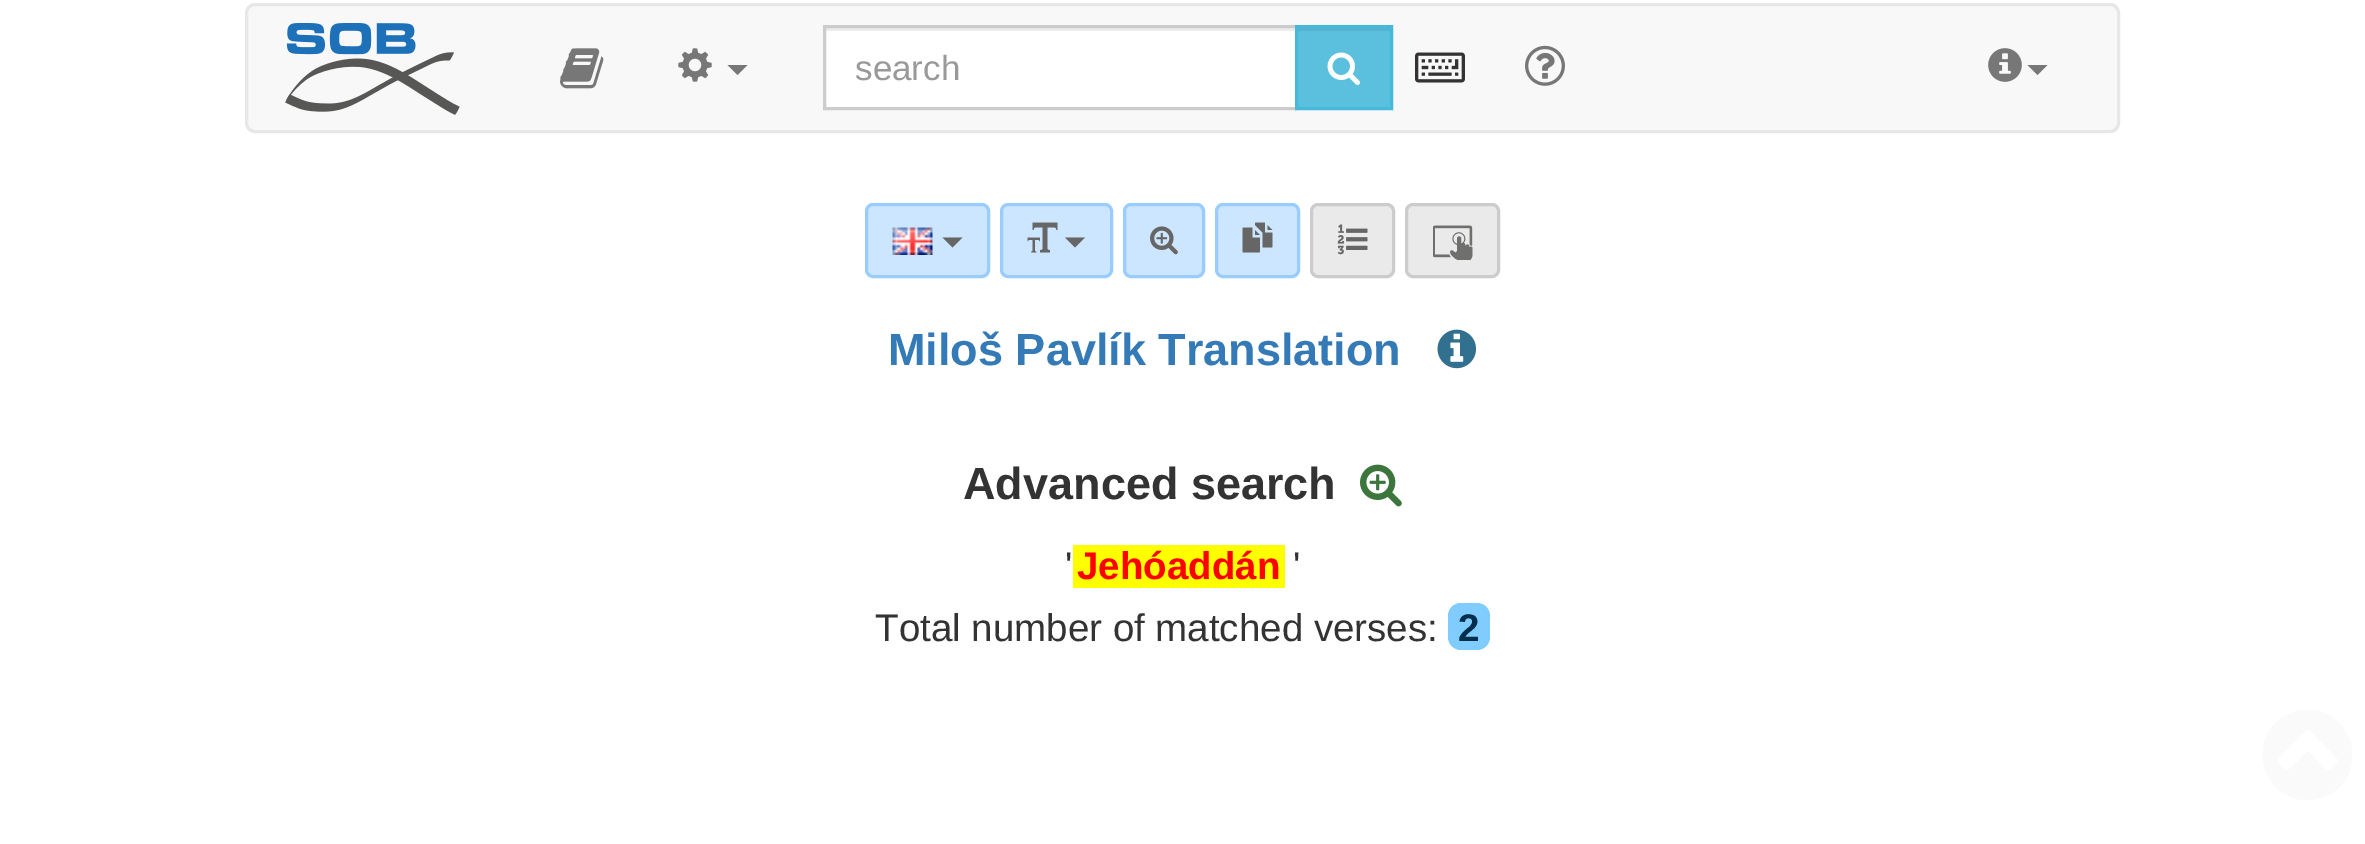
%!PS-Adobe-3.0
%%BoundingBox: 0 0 2365 844
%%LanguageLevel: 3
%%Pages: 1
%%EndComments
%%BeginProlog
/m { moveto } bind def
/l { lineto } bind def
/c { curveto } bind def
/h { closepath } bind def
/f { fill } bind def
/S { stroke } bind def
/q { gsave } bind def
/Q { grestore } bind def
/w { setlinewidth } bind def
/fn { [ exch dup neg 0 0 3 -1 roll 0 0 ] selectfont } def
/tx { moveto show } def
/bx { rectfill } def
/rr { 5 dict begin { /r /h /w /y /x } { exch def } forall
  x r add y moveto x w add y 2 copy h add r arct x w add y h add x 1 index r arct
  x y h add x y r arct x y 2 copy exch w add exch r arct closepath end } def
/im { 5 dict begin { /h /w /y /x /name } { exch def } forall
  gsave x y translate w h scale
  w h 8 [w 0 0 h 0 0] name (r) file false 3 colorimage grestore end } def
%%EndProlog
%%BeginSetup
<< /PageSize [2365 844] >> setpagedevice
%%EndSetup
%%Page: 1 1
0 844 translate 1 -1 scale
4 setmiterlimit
1 setgray
0 0 2365 844 bx
0.973 setgray
246.5 4.5 1872 127 8.5 rr q f Q
0.906 setgray
3 w
S
(image0.raw) 285 23 175 92 im
(image1.raw) 560 48 44 41 im
(image2.raw) 678 48 34 34 im
0.467 setgray
727.5 65 m 747.5 65 l 737.5 75 l h f
1 setgray
826 31 469 76 bx
0.925 setgray
825 28 470 3 bx
0.8 setgray
824.5 26.5 472 82 rectstroke
/LiberationSans-Regular 35 fn
0.6 setgray
(search) 855 80 tx
0.357 0.753 0.871 setrgbcolor
1298 31 92 76 bx
0.329 0.698 0.804 setrgbcolor
1298 28 92 3 bx
0.275 0.722 0.855 setrgbcolor
1296.5 26.5 95 82 rectstroke
(image3.raw) 1327 52 33 33 im
(image4.raw) 1415 52 50 31 im
(image5.raw) 1525 45 40 41 im
(image6.raw) 1988 48 34 34 im
0.467 setgray
2027.5 65 m 2047.5 65 l 2037.5 75 l h f
0.8 0.902 1 setrgbcolor
866.5 204.5 122 72 6.5 rr q f Q
0.6 0.8 1 setrgbcolor
S
(image7.raw) 892 227 41 28 im
0.4 setgray
942.5 237.5 m 962.5 237.5 l 952.5 247.5 l h f
0.8 0.902 1 setrgbcolor
1001.5 204.5 110 72 6.5 rr q f Q
0.6 0.8 1 setrgbcolor
S
(image8.raw) 1027 222 31 31 im
0.4 setgray
1065 237.5 m 1085 237.5 l 1075 247.5 l h f
0.8 0.902 1 setrgbcolor
1124.5 204.5 79 72 6.5 rr q f Q
0.6 0.8 1 setrgbcolor
S
(image9.raw) 1150 226 28 29 im
0.8 0.902 1 setrgbcolor
1216.5 204.5 82 72 6.5 rr q f Q
0.6 0.8 1 setrgbcolor
S
(image10.raw) 1242 222 31 31 im
0.918 setgray
1311.5 204.5 82 72 6.5 rr q f Q
0.8 setgray
S
(image11.raw) 1337 224 31 31 im
0.918 setgray
1406.5 204.5 92 72 6.5 rr q f Q
0.8 setgray
S
(image12.raw) 1433 225 40 35 im
/LiberationSans-Bold 45 fn
0.2 0.478 0.718 setrgbcolor
(Miloš Pavlík Translation) 888 365 tx
(image13.raw) 1437 329 40 40 im
0.2 setgray
(Advanced search) 963 499 tx
(image14.raw) 1360 464 42 43 im
/LiberationSans-Regular 38.5 fn
(') 1065 579 tx
1 1 0 setrgbcolor
1073 545 212 43 bx
/LiberationSans-Bold 38.5 fn
1 0 0 setrgbcolor
(Jehóaddán) 1077 579 tx
/LiberationSans-Regular 38.5 fn
0.2 setgray
(') 1293 579 tx
(Total number of matched verses:) 875 641 tx
0.502 0.8 1 setrgbcolor
1448 603 42 47 13 rr f
/LiberationSans-Bold 38.5 fn
0 0.18 0.302 setrgbcolor
(2) 1458 641 tx
0.98 setgray
2331 769 m 2341 759 2340 761 2328 749 c 2315 736 l 2307 728 2308 728 2300 736 c 2278 758 l 2276 761 2278 763 2280 765 c 2286 771 2286 772 2293 766 c 2308 751 l 2319 763 l 2322 765 2327 773 2331 769 c h 2346 732 m 2351 740 2353 749 2352 758 c 2350 802 2291 816 2269 778 c 2264 770 2262 761 2263 752 c 2265 708 2324 694 2346 732 c h f
showpage
%%EOF
